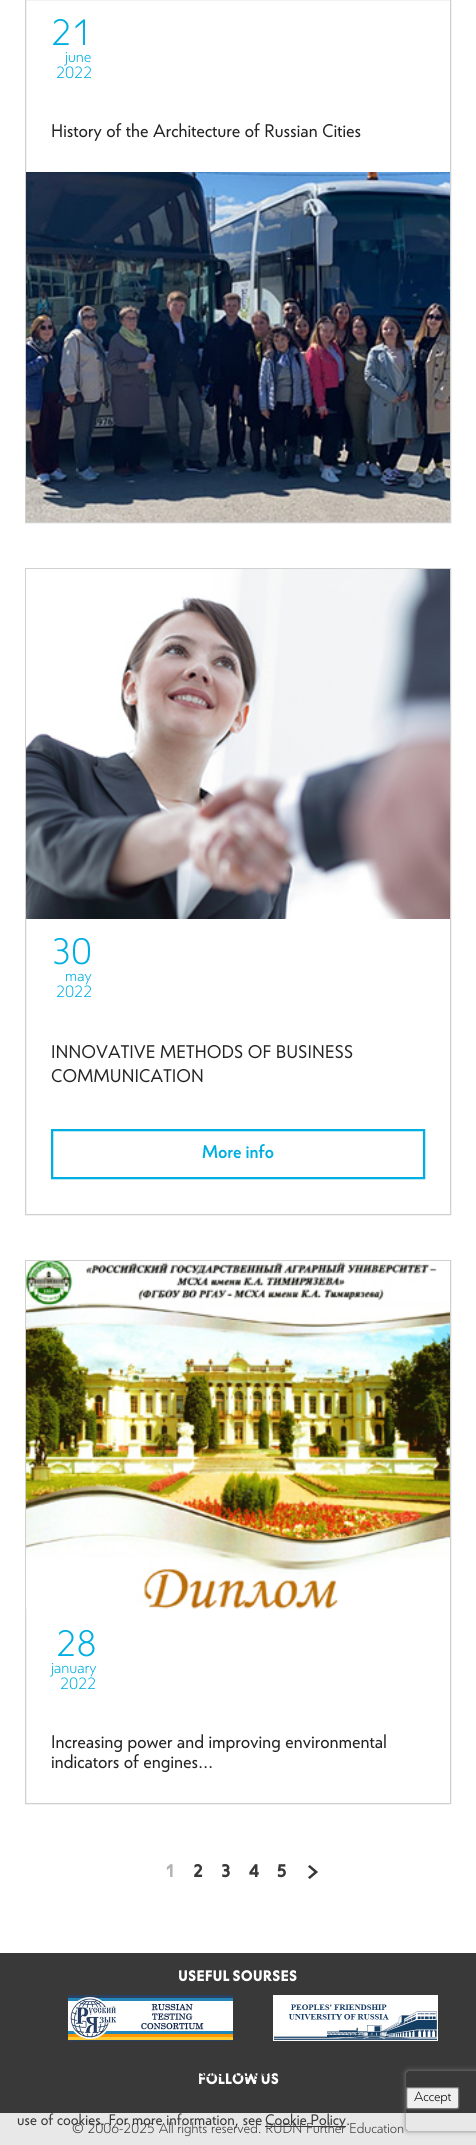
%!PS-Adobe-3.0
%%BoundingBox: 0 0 476 2145
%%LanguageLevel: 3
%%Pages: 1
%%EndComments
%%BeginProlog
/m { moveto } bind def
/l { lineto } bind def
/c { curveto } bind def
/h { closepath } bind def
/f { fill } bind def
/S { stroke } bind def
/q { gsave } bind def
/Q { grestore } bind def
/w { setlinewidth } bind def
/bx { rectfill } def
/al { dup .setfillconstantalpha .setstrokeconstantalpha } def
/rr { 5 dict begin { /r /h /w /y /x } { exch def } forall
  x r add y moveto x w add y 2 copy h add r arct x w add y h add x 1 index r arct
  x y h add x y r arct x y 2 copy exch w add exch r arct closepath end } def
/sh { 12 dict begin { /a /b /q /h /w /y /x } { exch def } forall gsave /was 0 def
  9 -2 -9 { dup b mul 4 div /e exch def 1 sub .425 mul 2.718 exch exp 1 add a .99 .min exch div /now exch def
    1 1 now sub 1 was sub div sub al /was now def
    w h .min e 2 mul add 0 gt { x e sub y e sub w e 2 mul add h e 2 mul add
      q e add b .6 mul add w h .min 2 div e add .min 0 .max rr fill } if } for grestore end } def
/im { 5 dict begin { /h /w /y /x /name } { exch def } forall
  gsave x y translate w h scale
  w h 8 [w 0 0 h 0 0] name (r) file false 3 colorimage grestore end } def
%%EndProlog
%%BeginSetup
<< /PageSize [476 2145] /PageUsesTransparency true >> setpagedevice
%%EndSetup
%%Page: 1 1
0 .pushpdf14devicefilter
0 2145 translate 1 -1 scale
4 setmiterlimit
1 setgray
0 0 476 2145 bx
0.816 setgray
25.5 -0.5 425 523 rectstroke
(image0.raw) 53 18 32 27 im
(image1.raw) 64 52 27 14 im
(image2.raw) 56 66 35 13 im
(image3.raw) 52 123 309 18 im
(image4.raw) 26 172 424 350 im
25.5 568.5 425 646 rectstroke
(image5.raw) 26 569 424 350 im
(image6.raw) 54 937 37 28 im
(image7.raw) 66 973 26 12 im
(image2.raw) 56 985 35 13 im
(image8.raw) 52 1045 301 14 im
(image9.raw) 51 1069 152 14 im
0 0.686 0.882 setrgbcolor
2 w
52 1130 372 48 rectstroke
(image10.raw) 202 1144 72 15 im
0.816 setgray
1 w
25.5 1260.5 425 543 rectstroke
(image11.raw) 26 1261 424 348 im
(image12.raw) 58 1629 37 28 im
(image13.raw) 50 1663 47 14 im
(image2.raw) 60 1677 35 13 im
(image14.raw) 52 1734 334 19 im
(image15.raw) 51 1754 161 19 im
(image16.raw) 166 1864 7 13 im
(image17.raw) 194 1864 9 13 im
(image18.raw) 222 1864 8 14 im
(image19.raw) 249 1864 10 13 im
(image20.raw) 277 1864 9 14 im
(image21.raw) 308 1865 10 14 im
0.224 setgray
0 1953 476 160 bx
(image22.raw) 179 1970 118 12 im
(image23.raw) 68 1995 165 46 im
(image24.raw) 273 1995 165 46 im
(image25.raw) 199 2073 80 12 im
0.91 setgray
0 2113 476 32 bx
(image26.raw) 72 2122 332 15 im
q
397 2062 m 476 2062 l 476 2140 l 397 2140 l h 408 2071 m 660 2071 l 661 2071 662 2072 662 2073 c 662 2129 l 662 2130 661 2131 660 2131 c 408 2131 l 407 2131 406 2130 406 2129 c 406 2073 l 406 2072 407 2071 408 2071 c h eoclip newpath
0.502 setgray
406 2071 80 60 2 2.5 1 sh
Q
(image27.raw) 200 2073 78 8 im
(image28.raw) 17 2113 245 15 im
0.224 setgray
265 2126 81 1 bx
(image29.raw) 265 2113 81 16 im
(image30.raw) 347 2123 2 2 im
0.937 setgray
406.5 2087.5 52 21 1.5 rr q f Q
0.463 setgray
S
(image31.raw) 414 2091 37 13 im
.poppdf14devicefilter showpage
%%EOF
